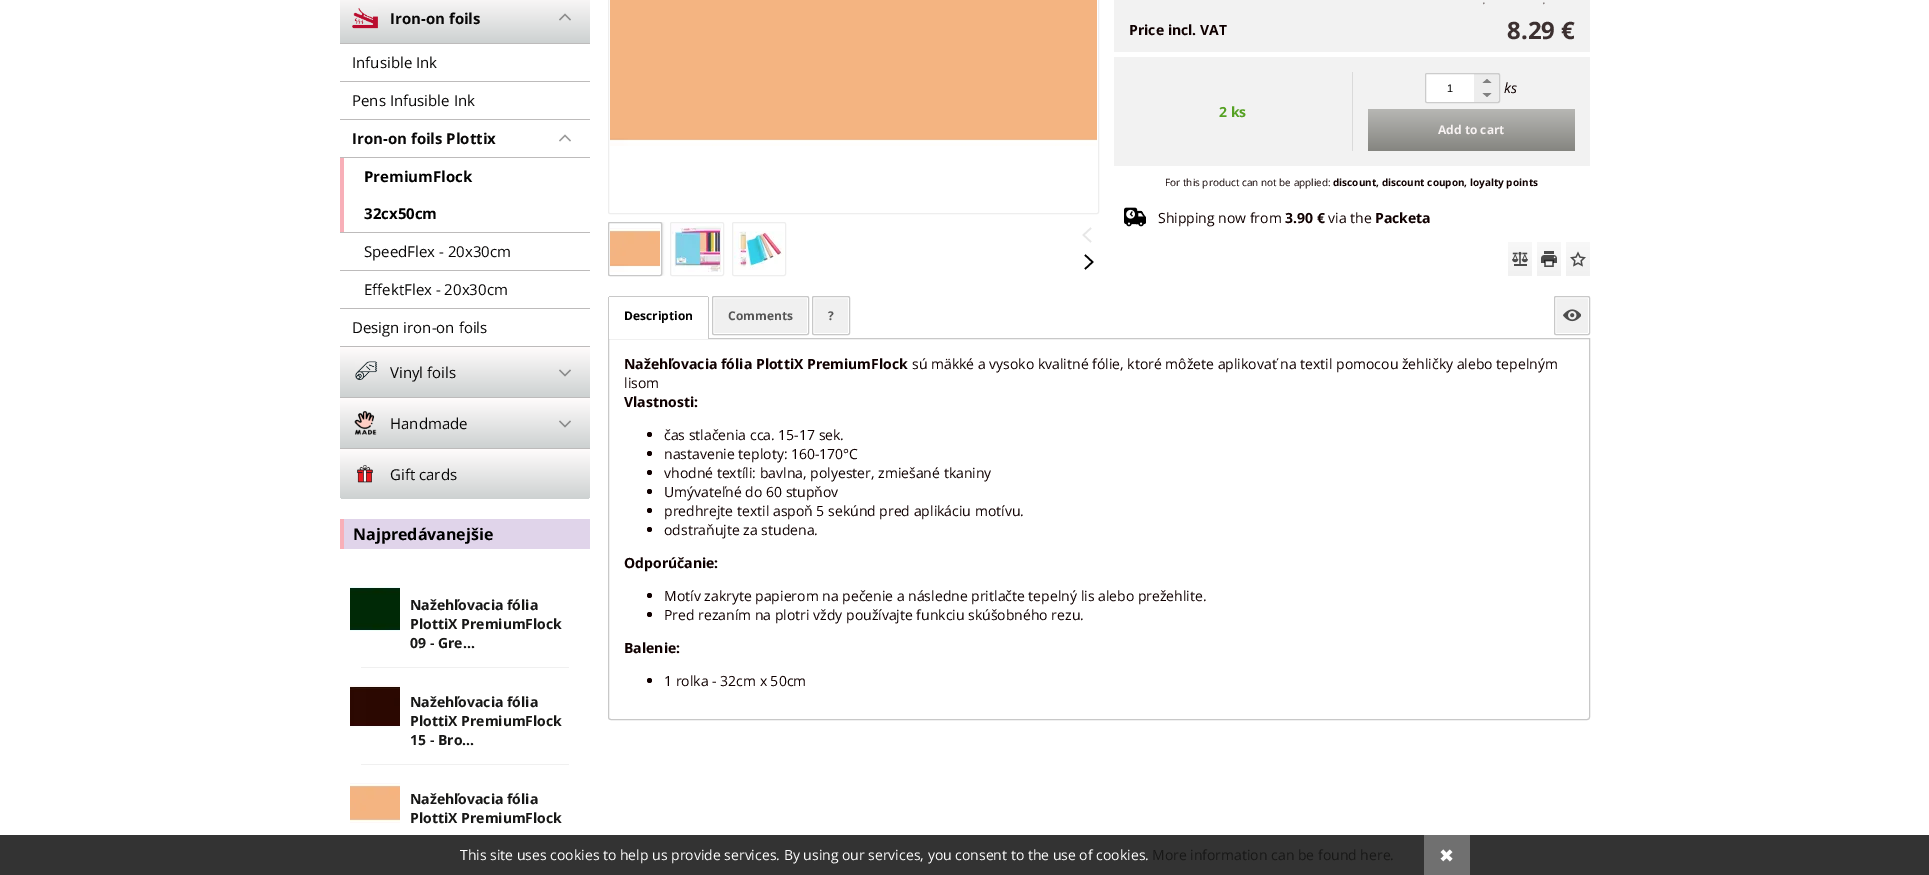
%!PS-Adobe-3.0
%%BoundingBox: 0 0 1929 875
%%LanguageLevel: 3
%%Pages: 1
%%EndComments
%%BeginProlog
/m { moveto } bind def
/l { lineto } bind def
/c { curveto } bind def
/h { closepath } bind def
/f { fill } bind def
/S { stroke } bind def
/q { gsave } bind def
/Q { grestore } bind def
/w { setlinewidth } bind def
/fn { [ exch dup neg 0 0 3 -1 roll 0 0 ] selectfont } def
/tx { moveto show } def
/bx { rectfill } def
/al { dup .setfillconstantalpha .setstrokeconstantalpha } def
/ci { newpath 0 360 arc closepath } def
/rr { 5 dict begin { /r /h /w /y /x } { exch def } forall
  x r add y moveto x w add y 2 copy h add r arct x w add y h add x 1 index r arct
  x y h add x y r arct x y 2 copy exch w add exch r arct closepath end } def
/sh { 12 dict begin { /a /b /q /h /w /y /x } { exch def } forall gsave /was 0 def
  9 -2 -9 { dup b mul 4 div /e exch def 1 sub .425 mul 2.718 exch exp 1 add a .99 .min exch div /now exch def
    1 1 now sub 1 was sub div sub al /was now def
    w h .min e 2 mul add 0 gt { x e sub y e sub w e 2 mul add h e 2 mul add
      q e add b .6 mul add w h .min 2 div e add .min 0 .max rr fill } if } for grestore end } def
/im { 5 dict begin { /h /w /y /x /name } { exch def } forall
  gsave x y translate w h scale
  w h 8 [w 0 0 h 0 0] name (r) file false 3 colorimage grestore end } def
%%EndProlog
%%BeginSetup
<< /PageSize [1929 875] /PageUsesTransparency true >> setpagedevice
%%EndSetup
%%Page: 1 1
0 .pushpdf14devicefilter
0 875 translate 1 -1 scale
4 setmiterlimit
1 setgray
0 0 1929 875 bx
q 340 0 m 590 0 l 590 43 l 340 43 l h clip newpath
<< /ShadingType 2 /ColorSpace /DeviceRGB /Coords [465 -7 465 43] /Extend [true true] /Function << /FunctionType 2 /Domain [0 1] /C0 [1 0.988 0.988] /C1 [0.804 0.82 0.82] /N 1 >> >> shfill Q
(image0.raw) 352 8 26 21 im
/OpenSans-Bold 15 fn
0.031 0.027 0.027 setrgbcolor
(Iron-on foils) 390 24 tx
0.4 al
0 setgray
1.2 w
559.5 20 m 565 14.5 l 570.5 20 l S
1 al
0.741 0.733 0.733 setrgbcolor
340 43 250 1 bx
/OpenSans-Regular 15 fn
0.031 0.027 0.027 setrgbcolor
(Infusible Ink) 352 68 tx
0.741 0.733 0.733 setrgbcolor
340 81 250 1 bx
0.031 0.027 0.027 setrgbcolor
(Pens Infusible Ink) 352 106 tx
0.741 0.733 0.733 setrgbcolor
340 119 250 1 bx
/OpenSans-Bold 15 fn
0.031 0.027 0.027 setrgbcolor
(Iron-on foils Plottix) 352 144 tx
0.6 setgray
559.5 141 m 565 135.5 l 570.5 141 l S
0.741 0.733 0.733 setrgbcolor
340 157 250 1 bx
0.973 0.686 0.722 setrgbcolor
340 158 4 74 bx
0 setgray
(PremiumFlock) 364 182 tx
(32cx50cm) 364 219 tx
0.741 0.733 0.733 setrgbcolor
340 232 250 1 bx
/OpenSans-Regular 15 fn
0.031 0.027 0.027 setrgbcolor
(SpeedFlex - 20x30cm) 364 257 tx
0.741 0.733 0.733 setrgbcolor
340 270 250 1 bx
0.031 0.027 0.027 setrgbcolor
(EffektFlex - 20x30cm) 364 295 tx
0.741 0.733 0.733 setrgbcolor
340 308 250 1 bx
0.031 0.027 0.027 setrgbcolor
(Design iron-on foils) 352 333 tx
0.741 0.733 0.733 setrgbcolor
340 346 250 1 bx
q 340 347 m 590 347 l 590 397 l 340 397 l h clip newpath
<< /ShadingType 2 /ColorSpace /DeviceRGB /Coords [465 347 465 397] /Extend [true true] /Function << /FunctionType 2 /Domain [0 1] /C0 [1 0.988 0.988] /C1 [0.804 0.82 0.82] /N 1 >> >> shfill Q
(image1.raw) 355 361 23 20 im
0.031 0.027 0.027 setrgbcolor
(Vinyl foils) 390 378 tx
0.4 al
0 setgray
570.5 370 m 565 375.5 l 559.5 370 l S
1 al
0.741 0.733 0.733 setrgbcolor
340 397 250 1 bx
q 340 398 m 590 398 l 590 448 l 340 448 l h clip newpath
<< /ShadingType 2 /ColorSpace /DeviceRGB /Coords [465 398 465 448] /Extend [true true] /Function << /FunctionType 2 /Domain [0 1] /C0 [1 0.988 0.988] /C1 [0.804 0.82 0.82] /N 1 >> >> shfill Q
(image2.raw) 354 411 23 24 im
0.031 0.027 0.027 setrgbcolor
(Handmade) 390 429 tx
0.4 al
0 setgray
570.5 421 m 565 426.5 l 559.5 421 l S
1 al
0.741 0.733 0.733 setrgbcolor
340 448 250 1 bx
q 340 449 m 590 449 l 590 495 l 590 497 588 499 586 499 c 344 499 l 342 499 340 497 340 495 c h clip newpath
<< /ShadingType 2 /ColorSpace /DeviceRGB /Coords [465 449 465 499] /Extend [true true] /Function << /FunctionType 2 /Domain [0 1] /C0 [1 0.988 0.988] /C1 [0.804 0.82 0.82] /N 1 >> >> shfill Q
(image3.raw) 357 465 16 18 im
0.031 0.027 0.027 setrgbcolor
(Gift cards) 390 480 tx
0.878 0.831 0.918 setrgbcolor
344 519 246 30 bx
0.973 0.686 0.722 setrgbcolor
340 519 4 30 bx
/OpenSans-Bold 16 fn
0 setgray
(Najpredávanejšie) 353 540 tx
(image4.raw) 350 585 50 46 im
/OpenSans-Bold 14 fn
0.09 0.09 0.086 setrgbcolor
(Nažehľovacia fólia) 410 610 tx
(PlottiX PremiumFlock) 410 629 tx
(09 - Gre...) 410 648 tx
0.941 setgray
361 667 208 1 bx
(image5.raw) 350 685 50 43 im
0.09 0.09 0.086 setrgbcolor
(Nažehľovacia fólia) 410 707 tx
(PlottiX PremiumFlock) 410 726 tx
(15 - Bro...) 410 745 tx
0.941 setgray
361 764 208 1 bx
(image6.raw) 350 783 50 40 im
0.09 0.09 0.086 setrgbcolor
(Nažehľovacia fólia) 410 804 tx
(PlottiX PremiumFlock) 410 823 tx
0.933 setgray
1 w
608.5 -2.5 490 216 1.5 rr S
(image7.raw) 610 0 487 146 im
q
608 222 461 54 rectclip
0.8 setgray
608 222 54 54 2 1.5 1 sh
Q
1 setgray
608.5 222.5 53 53 1.5 rr q f Q
0.784 setgray
S
(image8.raw) 610 228 50 44 im
0.933 setgray
670.5 222.5 53 53 1.5 rr S
(image9.raw) 672 224 50 48 im
732.5 222.5 53 53 1.5 rr S
(image10.raw) 734 231 50 39 im
0.902 setgray
1.6 w
1091 242 m 1083.5 235 l 1091 228 l S
0 setgray
1085 255 m 1092.5 262 l 1085 269 l S
0.949 setgray
1114 0 476 52 bx
/OpenSans-Regular 14 fn
0.506 0.475 0.475 setrgbcolor
(.) 1482 4 tx
(.) 1542 4 tx
/OpenSans-Bold 14 fn
0.059 0 0 setrgbcolor
(Price incl. VAT) 1129 35 tx
/OpenSans-Bold 24 fn
0.235 0.188 0.188 setrgbcolor
(8.29 €) 1507 39 tx
0.949 setgray
1114 57 476 109 bx
/OpenSans-Bold 14 fn
0.333 0.631 0.137 setrgbcolor
(2 ks) 1219 117 tx
0.855 setgray
1352 72 1 79 bx
1 setgray
1425.5 73.5 74 29 1.5 rr q f Q
0.8 setgray
1 w
S
/LiberationSans-Regular 11 fn
0 setgray
(1) 1447 92 tx
0.07 al
1474 74 25 14 bx
1 al
0.502 setgray
1491.5 83 m 1487 79 l 1482.5 83 l h f
0.07 al
0 setgray
1474 88 25 14 bx
1 al
0.502 setgray
1482.5 93 m 1487 97 l 1491.5 93 l h f
/OpenSans-Italic 14 fn
0.059 0 0 setrgbcolor
(ks) 1504 93 tx
q 1368 109 207 42 2 rr clip newpath
<< /ShadingType 2 /ColorSpace /DeviceRGB /Coords [1472 109 1472 151] /Extend [true true] /Function << /FunctionType 2 /Domain [0 1] /C0 [0.718 0.718 0.706] /C1 [0.522 0.522 0.502] /N 1 >> >> shfill Q
/OpenSans-Bold 12 fn
0.969 0.949 0.949 setrgbcolor
(Add to cart) 1438 134 tx
/OpenSans-Regular 10 fn
0.059 0 0 setrgbcolor
(For this product can not be applied:) 1165 186 tx
/OpenSans-Bold 10 fn
(discount, discount coupon, loyalty points) 1333 186 tx
(image11.raw) 1124 207 22 20 im
/OpenSans-Regular 14 fn
(Shipping now from) 1158 223 tx
/OpenSans-Bold 14 fn
(3.90 €) 1285 223 tx
/OpenSans-Regular 14 fn
(via the) 1328 223 tx
/OpenSans-Bold 14 fn
(Packeta) 1375 223 tx
q 1508 242 24 34 2 rr clip newpath
<< /ShadingType 2 /ColorSpace /DeviceRGB /Coords [1520 242 1520 276] /Extend [true true] /Function << /FunctionType 2 /Domain [0 1] /C0 [0.973 0.973 0.973] /C1 [0.945 0.945 0.945] /N 1 >> >> shfill Q
(image12.raw) 1512 251 16 15 im
q 1537 242 24 34 2 rr clip newpath
<< /ShadingType 2 /ColorSpace /DeviceRGB /Coords [1549 242 1549 276] /Extend [true true] /Function << /FunctionType 2 /Domain [0 1] /C0 [0.973 0.973 0.973] /C1 [0.945 0.945 0.945] /N 1 >> >> shfill Q
(image13.raw) 1541 251 16 16 im
q 1566 242 24 34 2 rr clip newpath
<< /ShadingType 2 /ColorSpace /DeviceRGB /Coords [1578 242 1578 276] /Extend [true true] /Function << /FunctionType 2 /Domain [0 1] /C0 [0.973 0.973 0.973] /C1 [0.945 0.945 0.945] /N 1 >> >> shfill Q
(image14.raw) 1570 251 16 16 im
0.784 setgray
608.5 338.5 m 1589.5 338.5 l 1589.5 717 l 1589.5 718.5 1588.5 719.5 1587 719.5 c 611 719.5 l 609.5 719.5 608.5 718.5 608.5 717 c h S
1 setgray
610 296 m 707 296 l 708 296 709 297 709 298 c 709 339 l 608 339 l 608 298 l 608 297 609 296 610 296 c h f
0.784 setgray
609 296 99 1 bx
708 297 1 42 bx
608 297 1 42 bx
/OpenSans-Bold 12 fn
0 setgray
(Description) 624 320 tx
0.941 setgray
712 296 97 39 2 rr f
1 setgray
713.5 297.5 94 36 0.5 rr S
0.784 setgray
712.5 296.5 96 38 1.5 rr S
0.333 setgray
(Comments) 728 320 tx
0.941 setgray
812 296 38 39 2 rr f
1 setgray
813.5 297.5 35 36 0.5 rr S
0.784 setgray
812.5 296.5 37 38 1.5 rr S
0.333 setgray
(?) 828 320 tx
0.941 setgray
1554 296 36 39 2 rr f
1 setgray
1555.5 297.5 33 36 0.5 rr S
0.784 setgray
1554.5 296.5 35 38 1.5 rr S
(image15.raw) 1563 309 18 13 im
/OpenSans-Bold 14 fn
0.059 0 0 setrgbcolor
(Nažehľovacia fólia PlottiX PremiumFlock) 624 369 tx
/OpenSans-Regular 14 fn
(sú mäkké a vysoko kvalitné fólie, ktoré môžete aplikovať na textil pomocou žehličky alebo tepelným) 912 369 tx
(lisom) 624 388 tx
/OpenSans-Bold 14 fn
(Vlastnosti:) 624 407 tx
649.5 434.5 2.5 ci f
/OpenSans-Regular 14 fn
(čas stlačenia cca. 15-17 sek.) 664 440 tx
649.5 453.5 2.5 ci f
(nastavenie teploty: 160-170°C) 664 459 tx
649.5 472.5 2.5 ci f
(vhodné textíli: bavlna, polyester, zmiešané tkaniny) 664 478 tx
649.5 491.5 2.5 ci f
(Umývateľné do 60 stupňov) 664 497 tx
649.5 510.5 2.5 ci f
(predhrejte textil aspoň 5 sekúnd pred aplikáciu motívu.) 664 516 tx
649.5 529.5 2.5 ci f
(odstraňujte za studena.) 664 535 tx
/OpenSans-Bold 14 fn
(Odporúčanie:) 624 568 tx
649.5 595.5 2.5 ci f
/OpenSans-Regular 14 fn
(Motív zakryte papierom na pečenie a následne pritlačte tepelný lis alebo prežehlite.) 664 601 tx
649.5 614.5 2.5 ci f
(Pred rezaním na plotri vždy používajte funkciu skúšobného rezu.) 664 620 tx
/OpenSans-Bold 14 fn
(Balenie:) 624 653 tx
649.5 680.5 2.5 ci f
/OpenSans-Regular 14 fn
(1 rolka - 32cm x 50cm) 664 686 tx
0.8 al
0 setgray
0 835 1929 40 bx
1 al
1 setgray
(This site uses cookies to help us provide services. By using our services, you consent to the use of cookies.) 460 860 tx
0.09 0.09 0.086 setrgbcolor
(More information can be found here.) 1152 860 tx
0.439 setgray
1424 835 46 40 bx
/DejaVuSans-Regular 18 fn
1 setgray
(✖) 1439 862 tx
.poppdf14devicefilter showpage
%%EOF
